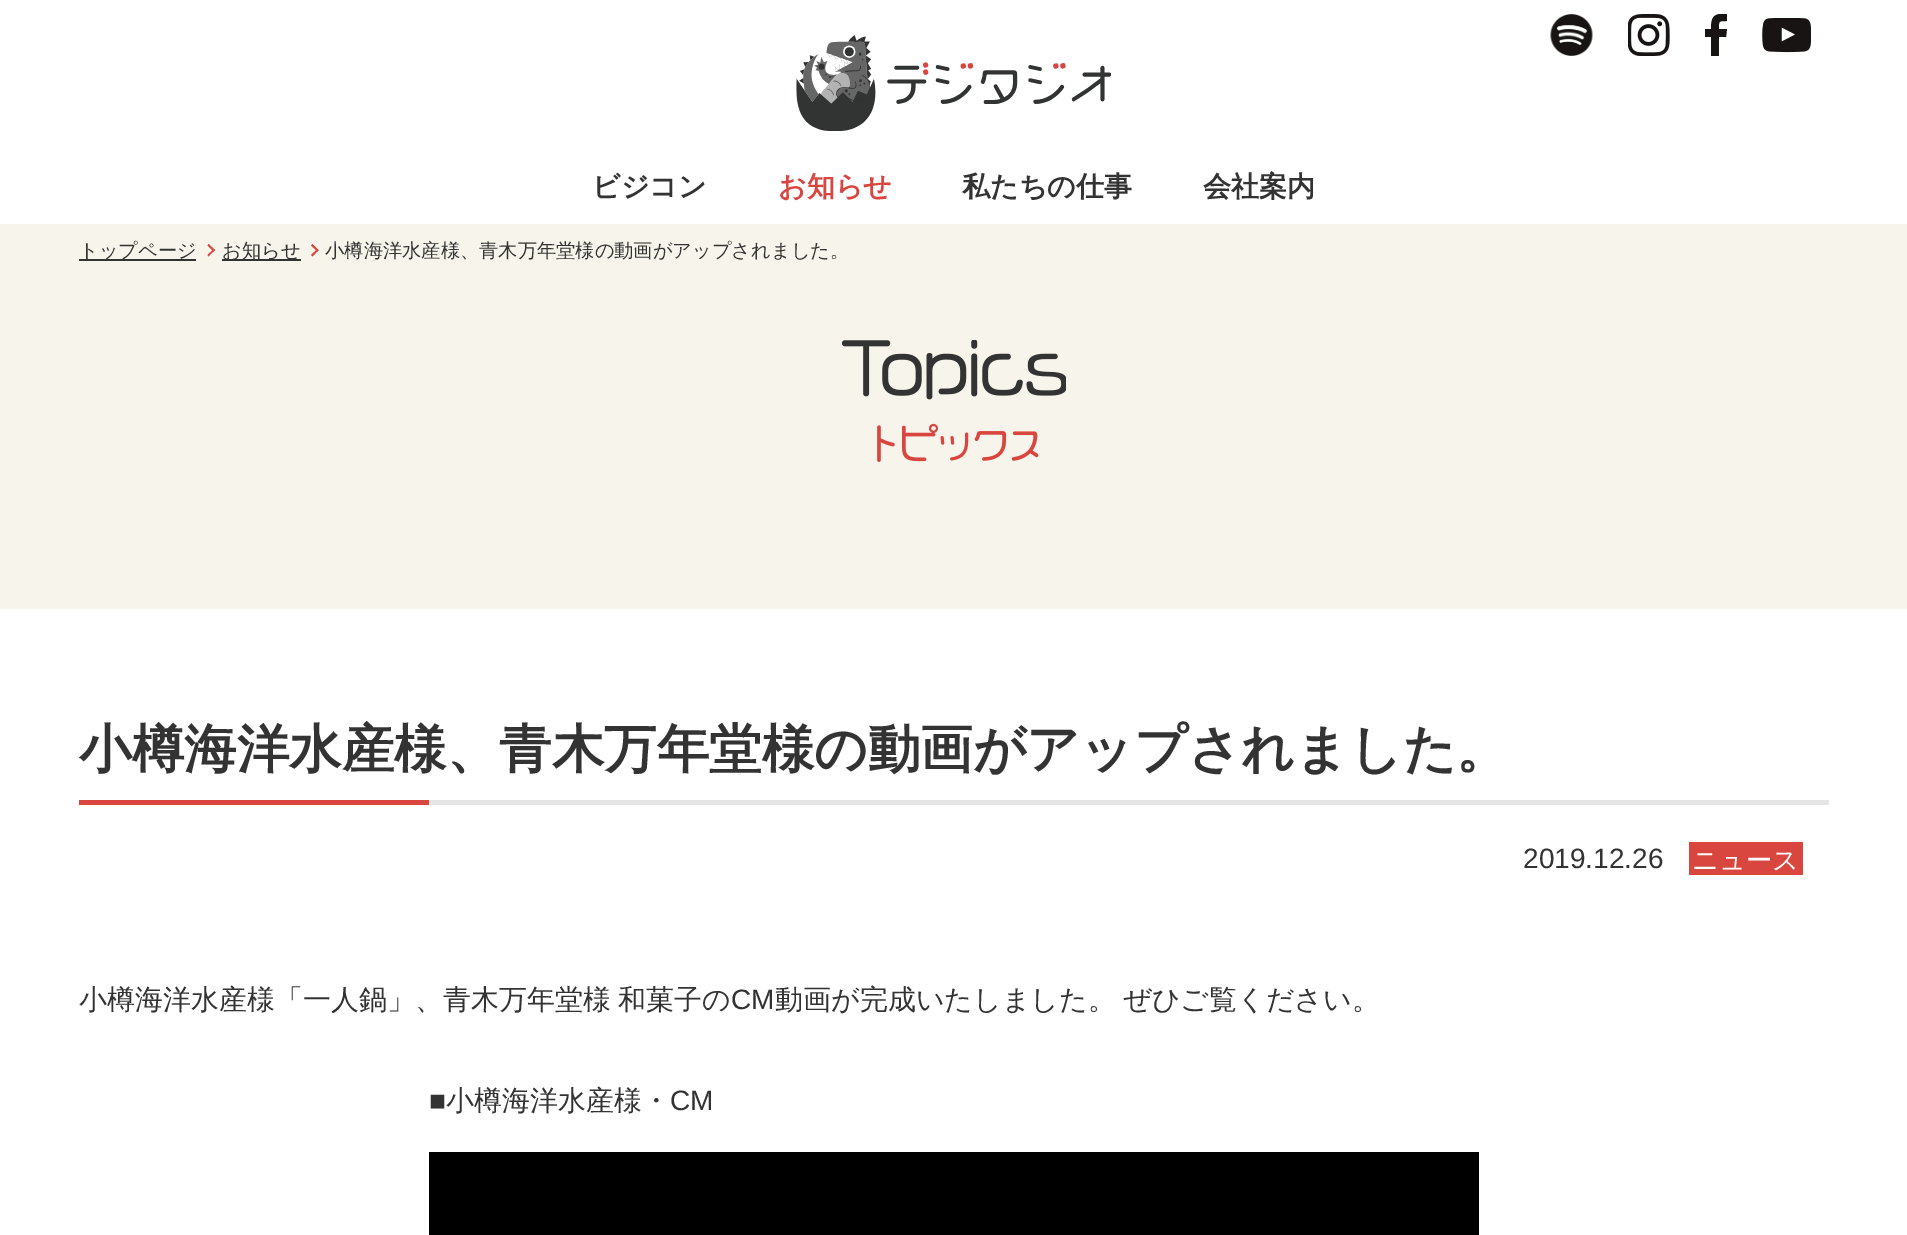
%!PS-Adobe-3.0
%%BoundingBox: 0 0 1907 1235
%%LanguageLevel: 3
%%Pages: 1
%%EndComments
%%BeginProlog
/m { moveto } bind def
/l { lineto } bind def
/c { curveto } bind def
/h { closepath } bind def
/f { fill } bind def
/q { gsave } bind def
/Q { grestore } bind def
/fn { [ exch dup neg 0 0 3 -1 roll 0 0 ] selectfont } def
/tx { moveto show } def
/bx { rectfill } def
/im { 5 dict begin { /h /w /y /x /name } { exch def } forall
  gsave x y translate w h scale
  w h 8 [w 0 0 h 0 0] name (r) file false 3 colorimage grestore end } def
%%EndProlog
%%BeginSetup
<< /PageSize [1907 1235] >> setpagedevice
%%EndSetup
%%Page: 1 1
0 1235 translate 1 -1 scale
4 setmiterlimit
1 setgray
0 0 1907 1235 bx
(image0.raw) 796 35 315 96 im
(image1.raw) 1550 14 43 42 im
(image2.raw) 1628 14 42 42 im
q
1705 14 22 42 rectclip
0.098 0.078 0.078 setrgbcolor
1719 56 m 1719 37 l 1726 37 l 1727 29 l 1719 29 l 1719 21 1718 21 1727 21 c 1727 14 l 1714 13 1711 16 1711 29 c 1705 29 l 1705 37 l 1711 37 l 1711 56 l h f
Q
(image3.raw) 1762 18 49 35 im
/WenQuanYiZenHei-Bold 28 fn
0.2 setgray
(ビジコン) 592 196 tx
0.851 0.275 0.251 setrgbcolor
(お知らせ) 778 196 tx
0.2 setgray
(私たちの仕事) 962 196 tx
(会社案内) 1203 196 tx
0.969 0.961 0.922 setrgbcolor
0 224 1907 385 bx
0.2 setgray
79 259 117 2 bx
/WenQuanYiZenHei-Medium 19.25 fn
(トップページ) 79 257 tx
0.851 0.275 0.251 setrgbcolor
207.5 245.5 m 208.5 244 l 215 250 l 213.5 251.5 l h f
207.5 255 m 213.5 249 l 215 250 l 208.5 256.5 l h f
0.2 setgray
222 259 79 2 bx
(お知らせ) 222 257 tx
0.851 0.275 0.251 setrgbcolor
311 245.5 m 312.5 244 l 318.5 250 l 317.5 251.5 l h f
311 255 m 317.5 249 l 318.5 250 l 312.5 256.5 l h f
0.2 setgray
(小樽海洋水産様、青木万年堂様の動画がアップされました。) 325 257 tx
(image4.raw) 842 340 224 122 im
0.898 setgray
429 800 1400 5 bx
/WenQuanYiZenHei-Bold 52.5 fn
0.2 setgray
(小樽海洋水産様、青木万年堂様の動画がアップされました。) 79 767 tx
0.851 0.275 0.251 setrgbcolor
79 800 350 5 bx
/LiberationSans-Regular 28 fn
0.2 setgray
(2019.12.26) 1523 868 tx
0.851 0.275 0.251 setrgbcolor
1689 842 114 33 bx
/WenQuanYiZenHei-Medium 26.25 fn
1 setgray
(ニュース) 1692 869 tx
/WenQuanYiZenHei-Medium 28 fn
0.2 setgray
79 1009 m -1 0 32 (小樽海洋水産様「一人鍋」、青木万年堂様 和菓子の) widthshow
/LiberationSans-Regular 28 fn
(CM) 731 1009 tx
/WenQuanYiZenHei-Medium 28 fn
775 1009 m -1 0 32 (動画が完成いたしました。 ぜひご覧ください。) widthshow
/LiberationSans-Regular 28 fn
(■) 429 1110 tx
/WenQuanYiZenHei-Medium 28 fn
(小樽海洋水産様・) 446 1110 tx
/LiberationSans-Regular 28 fn
(CM) 670 1110 tx
0 setgray
429 1152 1050 83 bx
showpage
%%EOF
